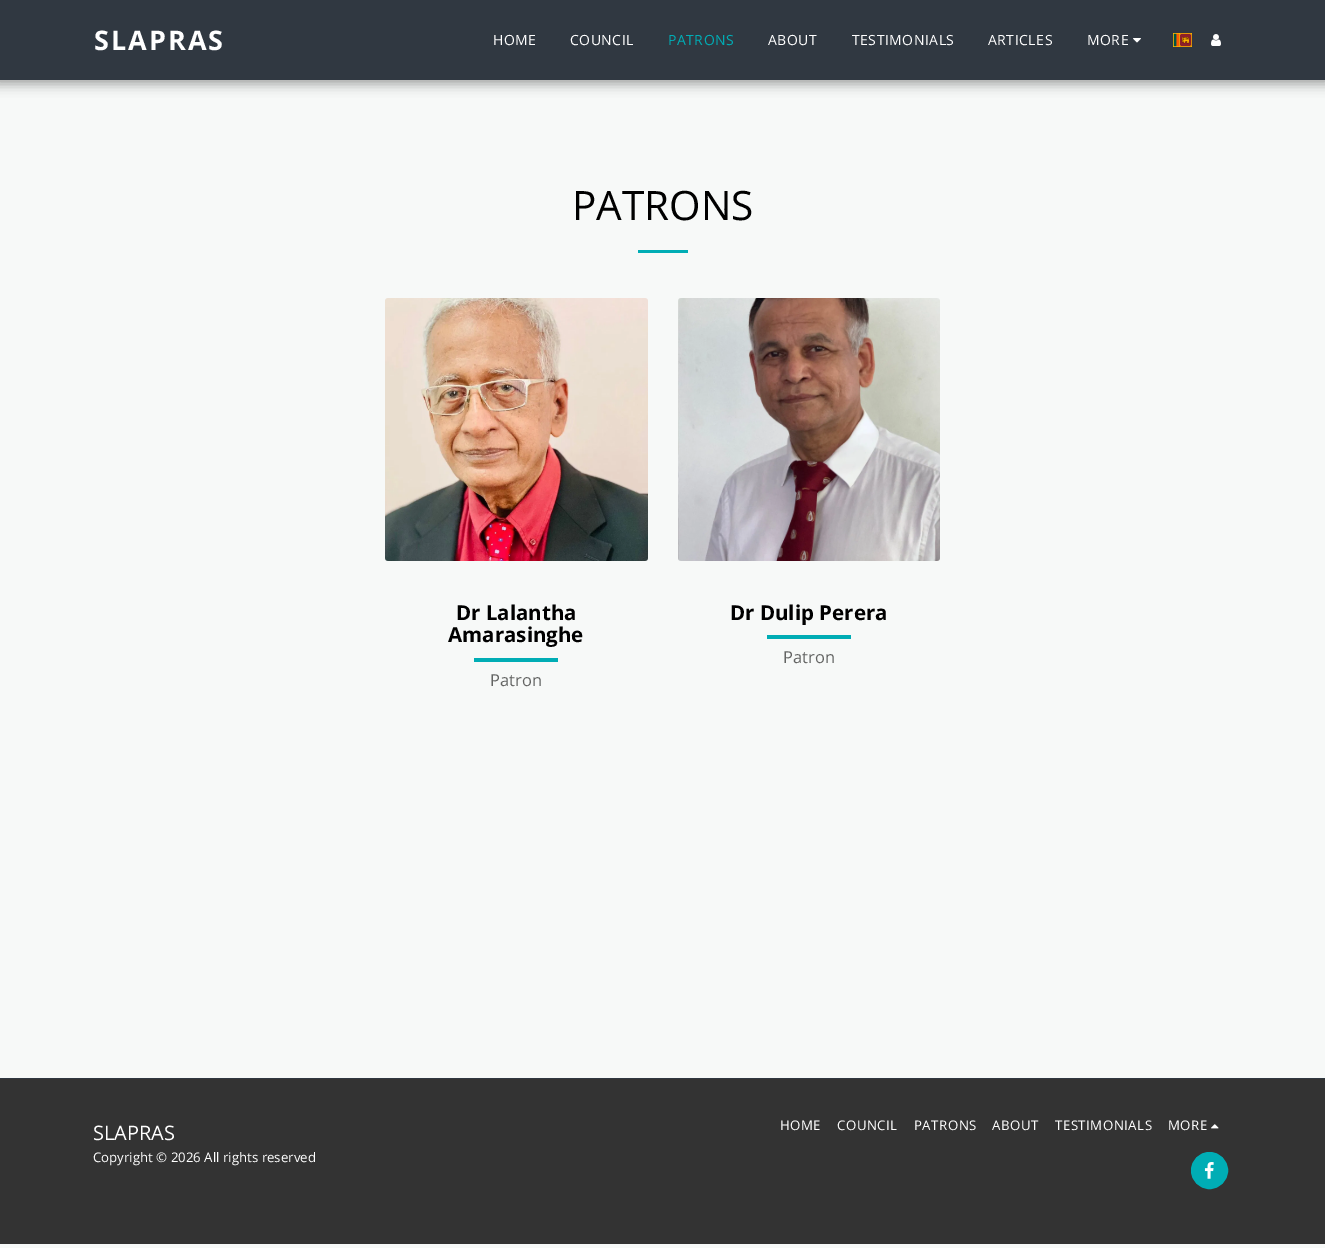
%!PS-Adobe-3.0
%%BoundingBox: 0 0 1325 1248
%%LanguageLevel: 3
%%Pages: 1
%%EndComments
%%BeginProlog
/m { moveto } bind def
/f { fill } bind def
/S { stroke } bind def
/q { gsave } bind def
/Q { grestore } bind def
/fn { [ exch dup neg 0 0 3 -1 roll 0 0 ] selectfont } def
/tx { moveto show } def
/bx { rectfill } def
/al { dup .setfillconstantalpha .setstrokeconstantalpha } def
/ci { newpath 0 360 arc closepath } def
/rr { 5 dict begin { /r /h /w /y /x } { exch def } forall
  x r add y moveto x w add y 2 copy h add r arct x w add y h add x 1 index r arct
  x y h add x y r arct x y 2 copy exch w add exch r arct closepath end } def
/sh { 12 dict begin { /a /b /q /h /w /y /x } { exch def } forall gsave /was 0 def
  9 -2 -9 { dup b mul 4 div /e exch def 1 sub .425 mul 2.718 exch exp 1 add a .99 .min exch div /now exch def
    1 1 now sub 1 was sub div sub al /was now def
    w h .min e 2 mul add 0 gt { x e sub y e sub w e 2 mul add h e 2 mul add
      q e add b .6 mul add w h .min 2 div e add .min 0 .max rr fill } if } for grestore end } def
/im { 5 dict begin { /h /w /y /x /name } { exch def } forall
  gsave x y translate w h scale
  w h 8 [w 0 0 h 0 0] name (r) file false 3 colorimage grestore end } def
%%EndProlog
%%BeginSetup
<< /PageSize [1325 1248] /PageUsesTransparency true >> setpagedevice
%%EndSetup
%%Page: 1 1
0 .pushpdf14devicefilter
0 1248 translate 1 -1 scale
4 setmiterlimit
0.969 0.976 0.973 setrgbcolor
0 0 1325 1248 bx
0 setgray
-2 0 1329 84 0 6 0.35 sh
0.188 0.22 0.255 setrgbcolor
0 0 1325 80 bx
/OpenSans-Bold 27 fn
1 setgray
94 50 m 2 0 (SLAPRAS) ashow
/OpenSans-Regular 14 fn
493 45 m 0.5 0 (HOME) ashow
570 45 m 0.5 0 (COUNCIL) ashow
0 0.678 0.71 setrgbcolor
668 45 m 0.5 0 (PATRONS) ashow
1 setgray
768 45 m 0.5 0 (ABOUT) ashow
852 45 m 0.5 0 (TESTIMONIALS) ashow
988 45 m 0.5 0 (ARTICLES) ashow
1087 45 m 0.5 0 (MORE) ashow
(image0.raw) 1133 38 8 5 im
(image1.raw) 1173 33 19 14 im
(image2.raw) 1211 34 10 12 im
/OpenSans-Regular 40.5 fn
0 setgray
(PATRONS) 572 220 tx
0 0.678 0.71 setrgbcolor
638 250 50 3 bx
(image3.raw) 385 298 263 263 im
/OpenSans-Bold 20.5 fn
0 setgray
(Dr Lalantha) 456 620 tx
(Amarasinghe) 448 642 tx
0 0.678 0.71 setrgbcolor
474 658 84 4 bx
/OpenSans-Regular 16.5 fn
0.388 0.392 0.388 setrgbcolor
(Patron) 490 686 tx
(image4.raw) 678 298 262 263 im
/OpenSans-Bold 20.5 fn
0 setgray
(Dr Dulip Perera) 730 620 tx
0 0.678 0.71 setrgbcolor
767 635 84 4 bx
/OpenSans-Regular 16.5 fn
0.388 0.392 0.388 setrgbcolor
(Patron) 783 663 tx
0.2 setgray
0 1079 1325 165 bx
0.188 0.22 0.255 setrgbcolor
0 1078 1325 1 bx
/OpenSans-Regular 20 fn
1 setgray
(SLAPRAS) 93 1140 tx
/OpenSans-Regular 13.25 fn
(Copyright © 2026 All rights reserved) 93 1162 tx
780 1130 m 0.5 0 (HOME) ashow
837 1130 m 0.5 0 (COUNCIL) ashow
914 1130 m 0.5 0 (PATRONS) ashow
992 1130 m 0.5 0 (ABOUT) ashow
1055 1130 m 0.5 0 (TESTIMONIALS) ashow
1168 1130 m 0.5 0 (MORE) ashow
(image5.raw) 1211 1124 8 5 im
0 0.678 0.71 setrgbcolor
1209.5 1170.5 18 ci q f Q
S
(image6.raw) 1204 1162 10 17 im
.poppdf14devicefilter showpage
%%EOF
